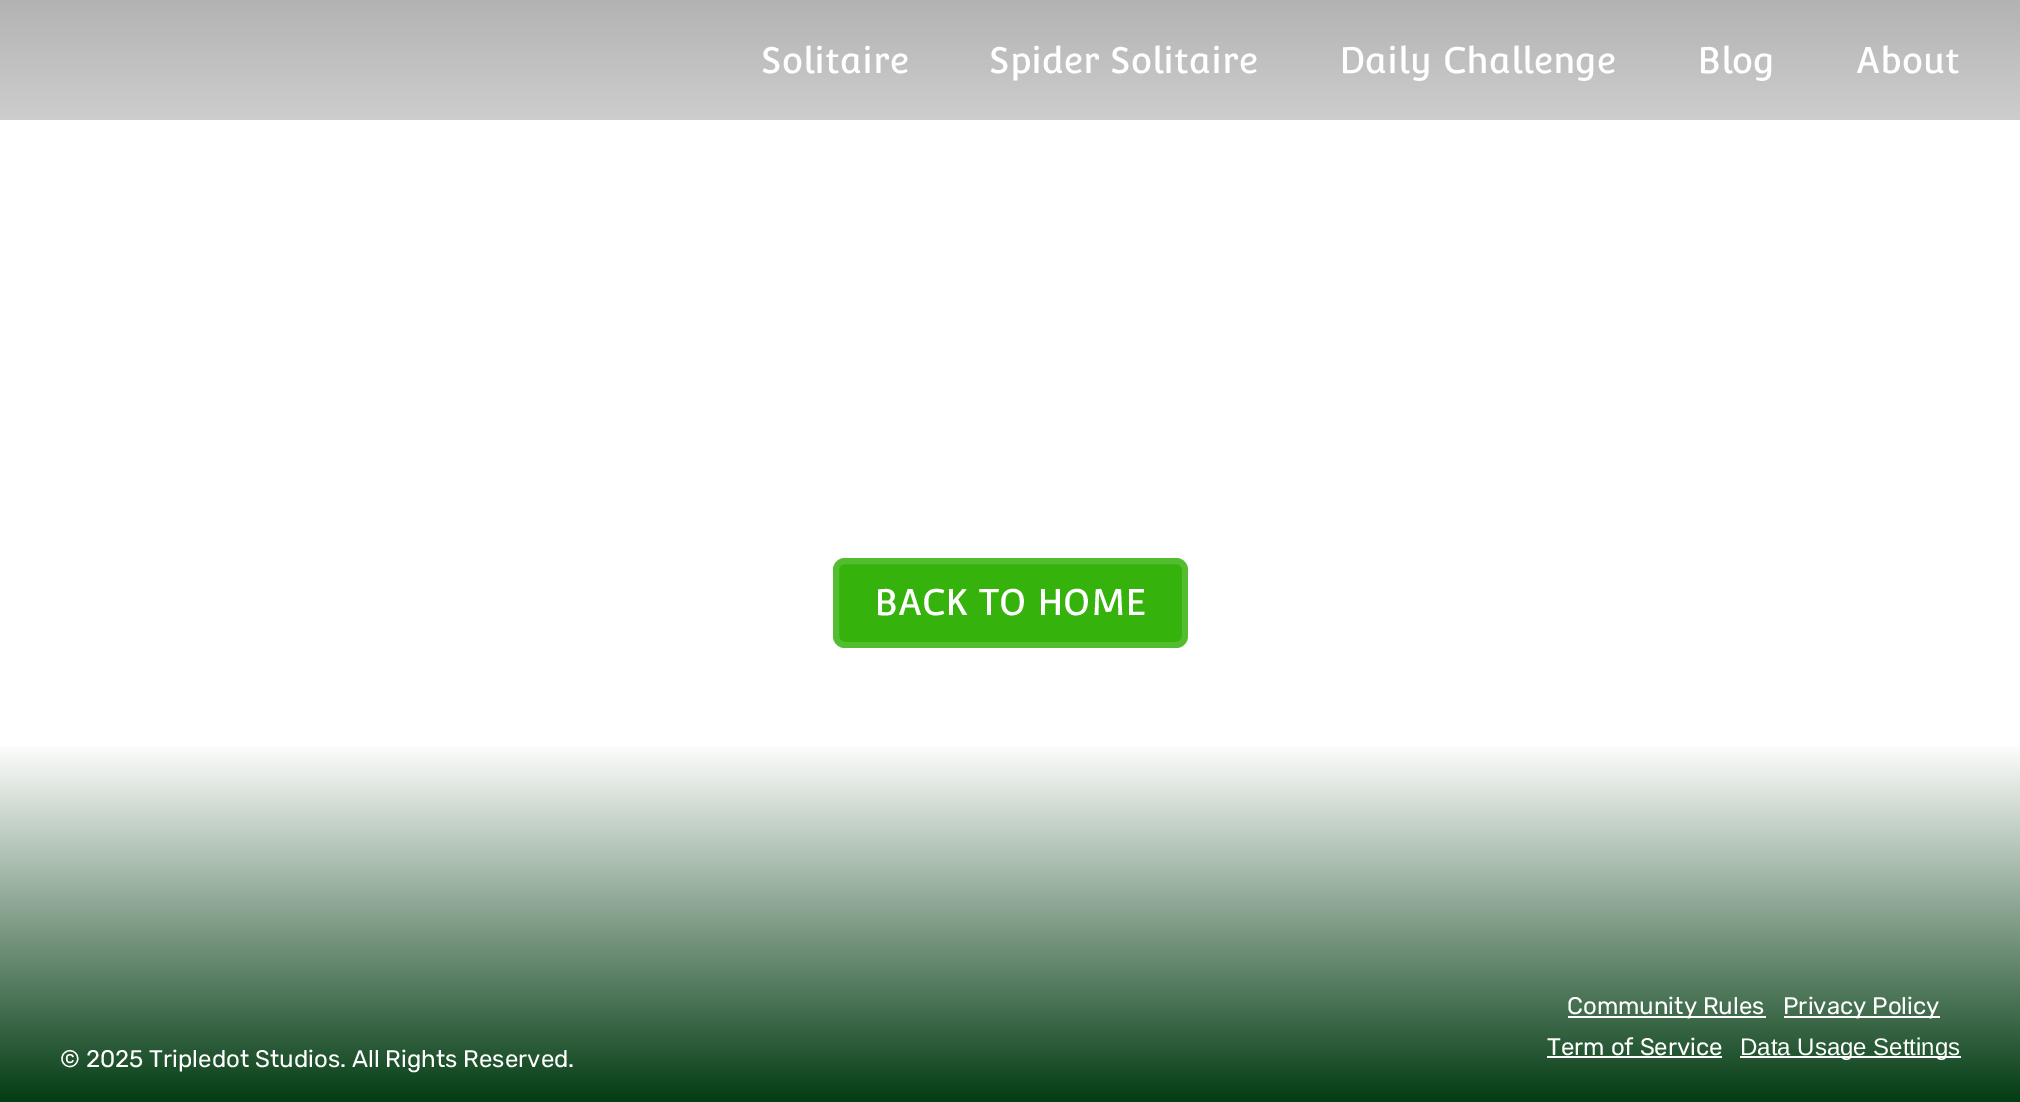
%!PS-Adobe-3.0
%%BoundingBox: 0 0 2020 1102
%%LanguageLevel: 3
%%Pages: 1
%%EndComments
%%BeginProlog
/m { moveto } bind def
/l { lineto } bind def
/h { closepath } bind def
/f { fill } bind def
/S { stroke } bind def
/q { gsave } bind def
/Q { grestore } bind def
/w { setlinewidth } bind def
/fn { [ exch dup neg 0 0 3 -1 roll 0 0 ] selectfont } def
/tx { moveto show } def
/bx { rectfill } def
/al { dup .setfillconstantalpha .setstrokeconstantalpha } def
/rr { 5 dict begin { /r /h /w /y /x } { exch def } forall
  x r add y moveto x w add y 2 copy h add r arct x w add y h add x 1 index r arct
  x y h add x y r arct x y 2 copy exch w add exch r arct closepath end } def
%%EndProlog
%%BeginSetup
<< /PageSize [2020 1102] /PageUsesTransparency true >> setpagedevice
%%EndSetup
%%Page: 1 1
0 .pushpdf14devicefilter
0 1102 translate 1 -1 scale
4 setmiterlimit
1 setgray
0 0 2020 1102 bx
q 0 0 m 2020 0 l 2020 120 l 0 120 l h clip newpath
<< /ShadingType 2 /ColorSpace /DeviceRGB /Coords [1010 120 1010 0] /Extend [true true] /Function << /FunctionType 2 /Domain [0 1] /C0 [0.804 0.804 0.804] /C1 [0.702 0.702 0.702] /N 1 >> >> shfill Q
/Convergence-Regular 36 fn
(Solitaire) 761 73 tx
(Spider Solitaire) 989 73 tx
(Daily Challenge) 1339 73 tx
(Blog) 1697 73 tx
(About) 1856 73 tx
0.208 0.698 0.047 setrgbcolor
833 558 355 90 12 rr f
0.15 al
1 setgray
6 w
836 561 349 84 9 rr S
1 al
(BACK TO HOME) 874 615 tx
q 0 746 m 2020 746 l 2020 1102 l 0 1102 l h clip newpath
<< /ShadingType 2 /ColorSpace /DeviceRGB /Coords [1010 742 1010 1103] /Extend [true true] /Function << /FunctionType 2 /Domain [0 1] /C0 [1 1 1] /C1 [0.008 0.235 0.071] /N 1 >> >> shfill Q
/Rubik-Regular 24 fn
(© 2025 Tripledot Studios. All Rights Reserved.) 60 1067 tx
1568 1016 198 2 bx
(Community Rules) 1567 1014 tx
1784 1016 156 2 bx
(Privacy Policy) 1783 1014 tx
(Term of Service) 1547 1055 tx
1547 1056 175 2 bx
1740 1056 221 2 bx
/LiberationSans-Regular 24 fn
(Data Usage Settings) 1740 1055 tx
.poppdf14devicefilter showpage
%%EOF
